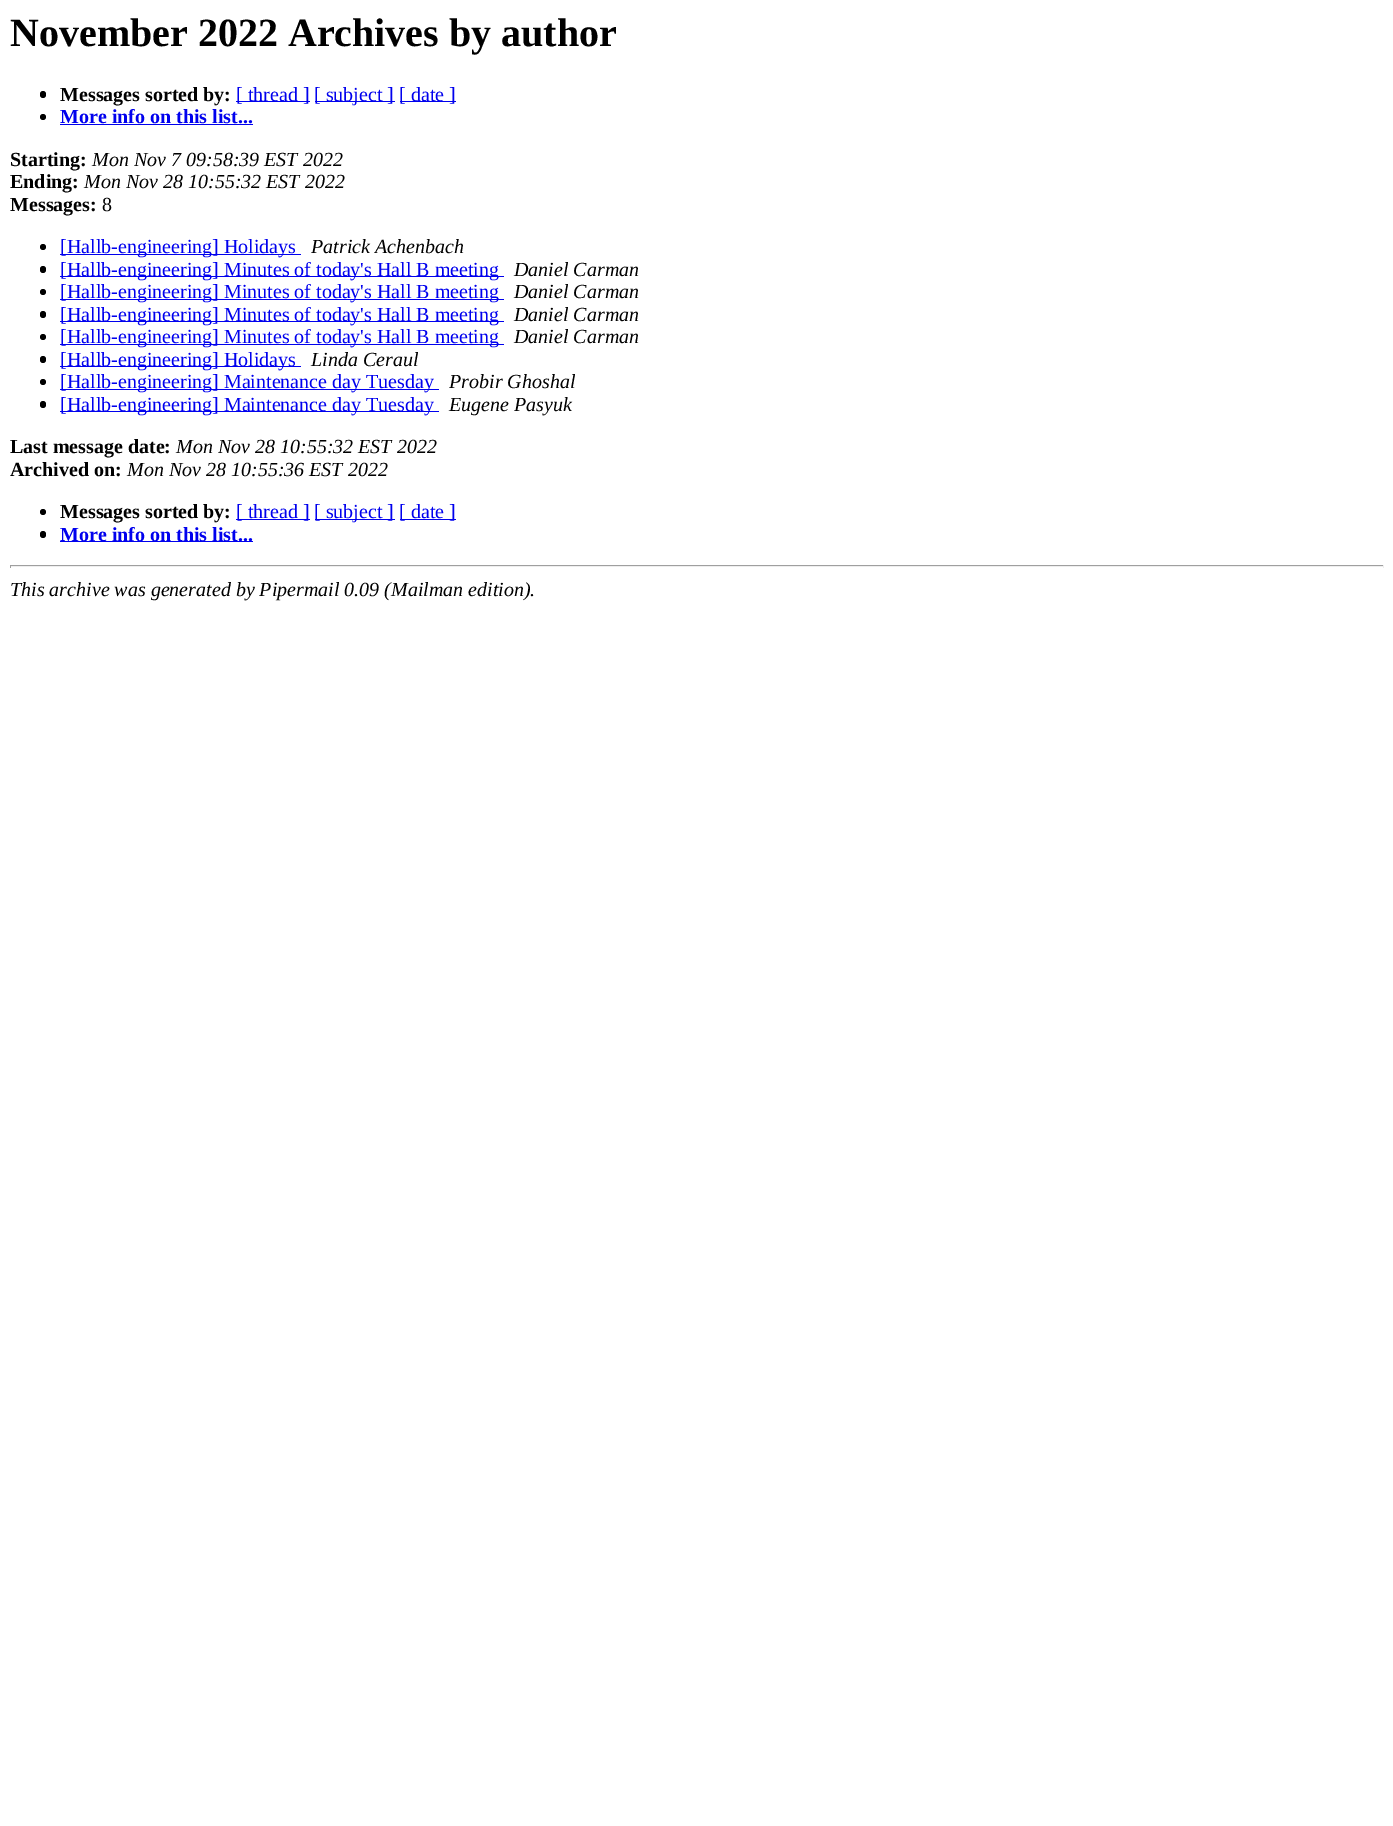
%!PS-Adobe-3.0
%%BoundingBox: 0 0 1393 1826
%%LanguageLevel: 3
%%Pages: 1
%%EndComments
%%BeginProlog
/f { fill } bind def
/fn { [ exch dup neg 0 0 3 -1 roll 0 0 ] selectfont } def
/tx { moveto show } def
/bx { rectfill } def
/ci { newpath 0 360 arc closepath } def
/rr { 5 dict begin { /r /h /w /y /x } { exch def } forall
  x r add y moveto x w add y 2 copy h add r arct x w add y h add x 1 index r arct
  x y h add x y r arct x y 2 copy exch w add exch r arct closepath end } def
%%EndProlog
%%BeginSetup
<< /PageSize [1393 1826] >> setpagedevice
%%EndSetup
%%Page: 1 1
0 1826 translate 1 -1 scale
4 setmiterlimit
1 setgray
0 0 1393 1826 bx
/LiberationSerif-Bold 40 fn
0 setgray
(November 2022 Archives by author) 10 46 tx
40 91 6 7 3 rr f
/LiberationSerif-Bold 20 fn
(Messages sorted by:) 60 101 tx
0 0 0.933 setrgbcolor
236 101 74 1 bx
/LiberationSerif-Regular 20 fn
([ thread ]) 236 101 tx
315 101 80 1 bx
([ subject ]) 314 101 tx
400 101 56 1 bx
([ date ]) 399 101 tx
0 setgray
43 117 3 ci f
/LiberationSerif-Bold 20 fn
0 0 0.933 setrgbcolor
(More info on this list...) 60 123 tx
60 124 193 1 bx
0 setgray
(Starting:) 10 166 tx
/LiberationSerif-Italic 20 fn
(Mon Nov 7 09:58:39 EST 2022) 92 166 tx
/LiberationSerif-Bold 20 fn
(Ending:) 10 188 tx
/LiberationSerif-Italic 20 fn
(Mon Nov 28 10:55:32 EST 2022) 84 188 tx
/LiberationSerif-Bold 20 fn
(Messages:) 10 211 tx
/LiberationSerif-Regular 20 fn
(8) 102 211 tx
43 247 3 ci f
0 0 0.933 setrgbcolor
60 254 241 1 bx
([Hallb-engineering] Holidays) 60 253 tx
/LiberationSerif-Italic 20 fn
0 setgray
(Patrick Achenbach) 311 253 tx
40 266 6 7 3 rr f
0 0 0.933 setrgbcolor
60 276 444 1 bx
/LiberationSerif-Regular 20 fn
([Hallb-engineering] Minutes of today's Hall B meeting) 60 276 tx
/LiberationSerif-Italic 20 fn
0 setgray
(Daniel Carman) 514 276 tx
43 292 3 ci f
0 0 0.933 setrgbcolor
60 299 444 1 bx
/LiberationSerif-Regular 20 fn
([Hallb-engineering] Minutes of today's Hall B meeting) 60 298 tx
/LiberationSerif-Italic 20 fn
0 setgray
(Daniel Carman) 514 298 tx
40 311 6 7 3 rr f
0 0 0.933 setrgbcolor
60 321 444 1 bx
/LiberationSerif-Regular 20 fn
([Hallb-engineering] Minutes of today's Hall B meeting) 60 321 tx
/LiberationSerif-Italic 20 fn
0 setgray
(Daniel Carman) 514 321 tx
43 337 3 ci f
0 0 0.933 setrgbcolor
60 344 444 1 bx
/LiberationSerif-Regular 20 fn
([Hallb-engineering] Minutes of today's Hall B meeting) 60 343 tx
/LiberationSerif-Italic 20 fn
0 setgray
(Daniel Carman) 514 343 tx
40 356 6 7 3 rr f
0 0 0.933 setrgbcolor
60 366 241 1 bx
/LiberationSerif-Regular 20 fn
([Hallb-engineering] Holidays) 60 366 tx
/LiberationSerif-Italic 20 fn
0 setgray
(Linda Ceraul) 311 366 tx
43 382 3 ci f
0 0 0.933 setrgbcolor
60 389 379 1 bx
/LiberationSerif-Regular 20 fn
([Hallb-engineering] Maintenance day Tuesday) 60 388 tx
/LiberationSerif-Italic 20 fn
0 setgray
(Probir Ghoshal) 449 388 tx
40 401 6 7 3 rr f
0 0 0.933 setrgbcolor
60 411 379 1 bx
/LiberationSerif-Regular 20 fn
([Hallb-engineering] Maintenance day Tuesday) 60 411 tx
/LiberationSerif-Italic 20 fn
0 setgray
(Eugene Pasyuk) 449 411 tx
/LiberationSerif-Bold 20 fn
(Last message date:) 10 453 tx
/LiberationSerif-Italic 20 fn
(Mon Nov 28 10:55:32 EST 2022) 176 453 tx
/LiberationSerif-Bold 20 fn
(Archived on:) 10 476 tx
/LiberationSerif-Italic 20 fn
(Mon Nov 28 10:55:36 EST 2022) 127 476 tx
43 512 3 ci f
/LiberationSerif-Bold 20 fn
(Messages sorted by:) 60 518 tx
0 0 0.933 setrgbcolor
236 519 74 1 bx
/LiberationSerif-Regular 20 fn
([ thread ]) 236 518 tx
315 519 80 1 bx
([ subject ]) 314 518 tx
400 519 56 1 bx
([ date ]) 399 518 tx
0 setgray
40 531 6 7 3 rr f
0 0 0.933 setrgbcolor
60 541 193 1 bx
/LiberationSerif-Bold 20 fn
(More info on this list...) 60 541 tx
0.624 setgray
10 565 1374 1 bx
0.933 setgray
1383 565 1 3 bx
10 566 1374 1 bx
0.624 setgray
10 565 1 3 bx
/LiberationSerif-Italic 20 fn
0 setgray
(This archive was generated by Pipermail 0.09 \(Mailman edition\).) 10 596 tx
showpage
%%EOF
